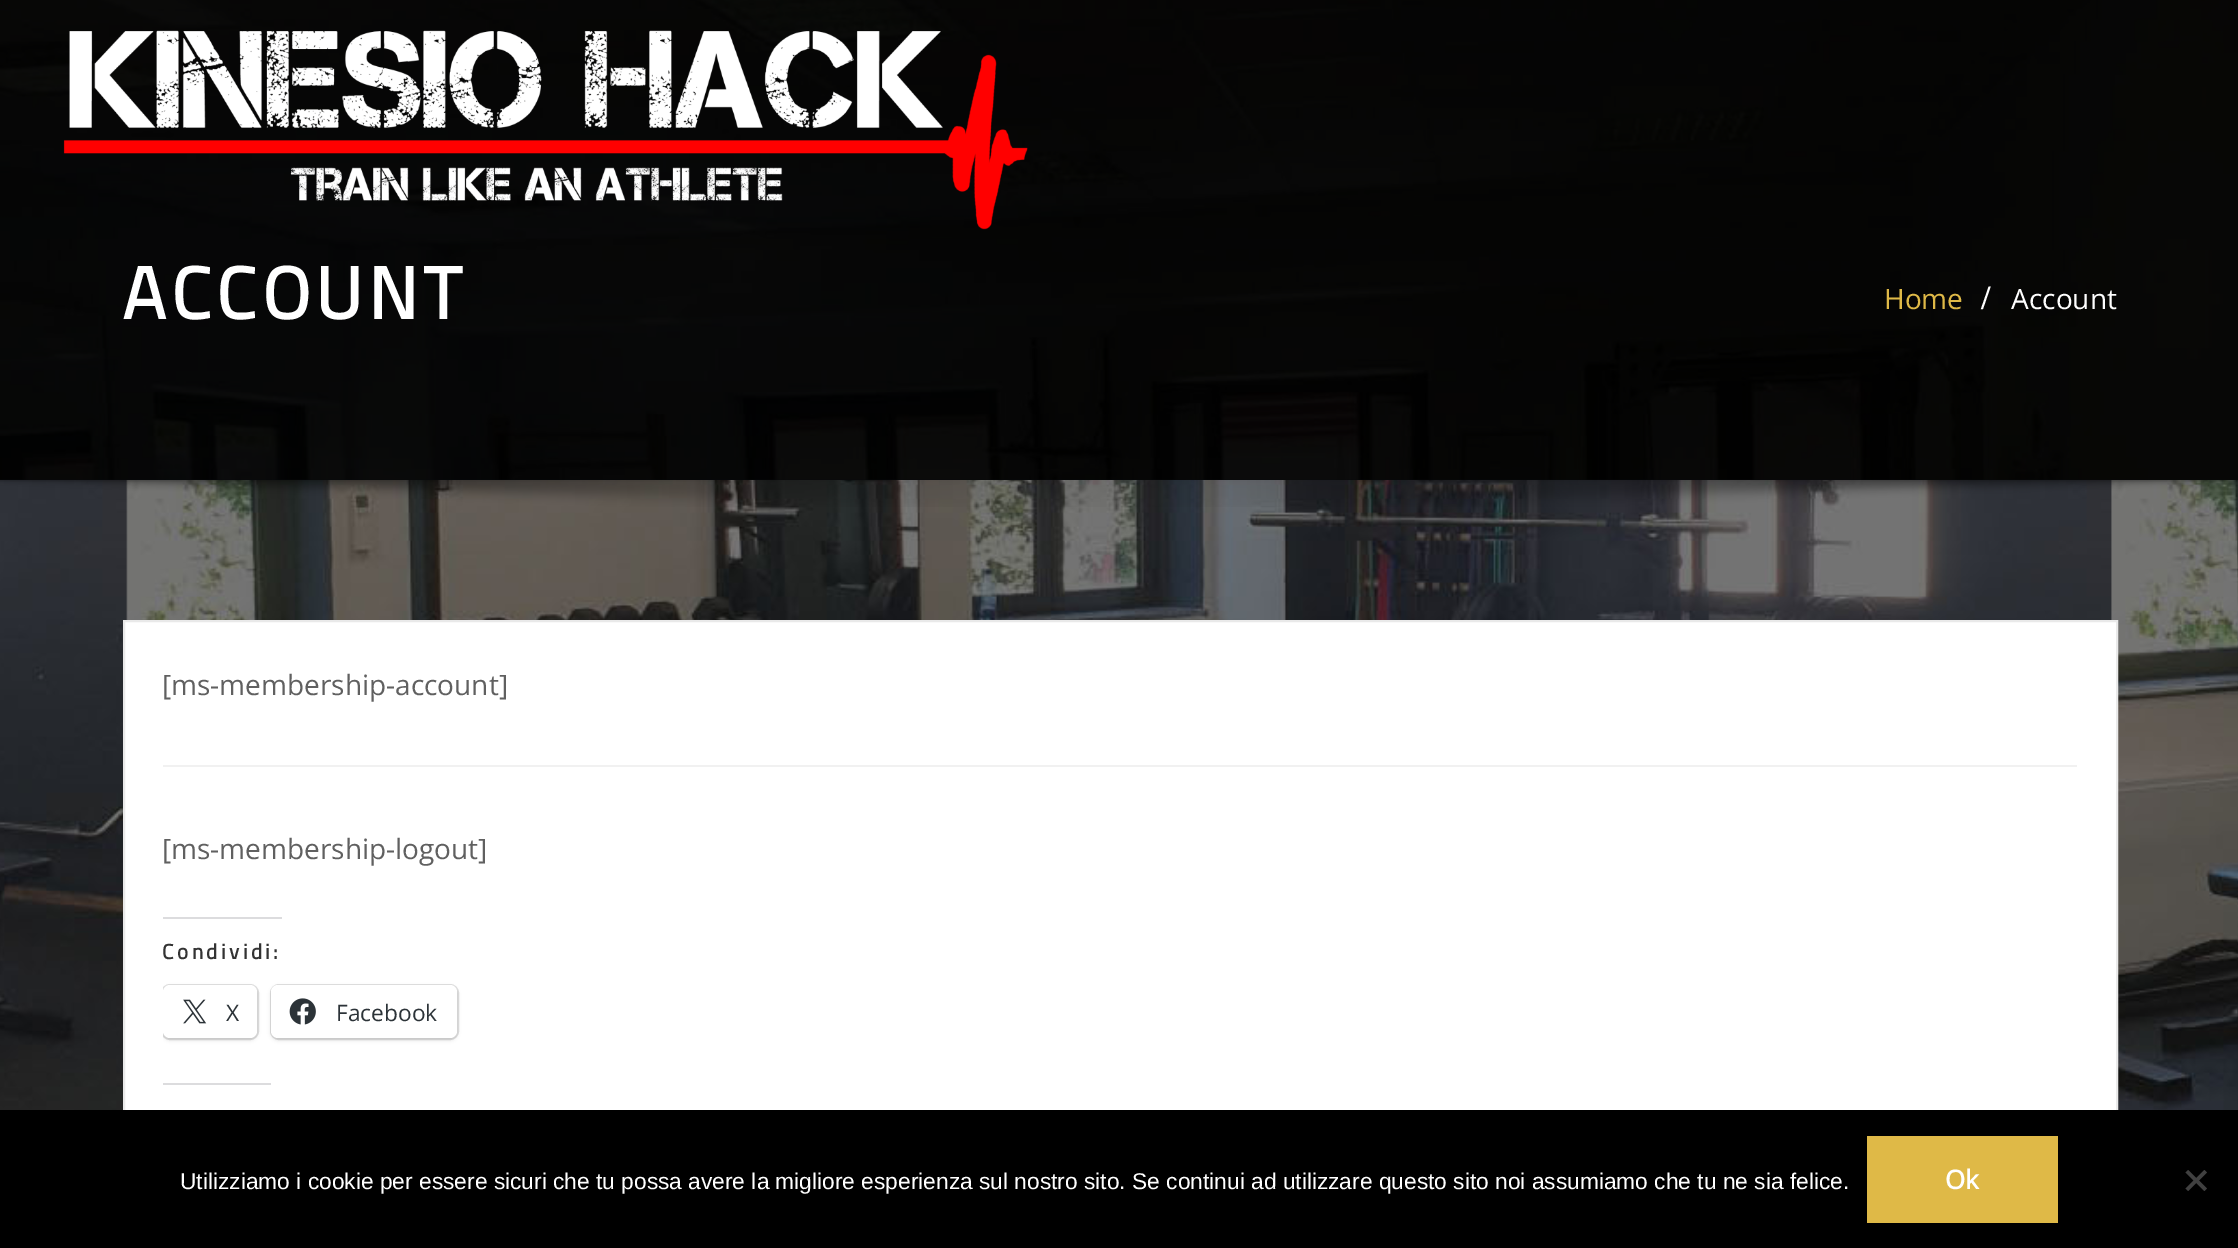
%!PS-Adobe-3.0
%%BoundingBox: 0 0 2238 1248
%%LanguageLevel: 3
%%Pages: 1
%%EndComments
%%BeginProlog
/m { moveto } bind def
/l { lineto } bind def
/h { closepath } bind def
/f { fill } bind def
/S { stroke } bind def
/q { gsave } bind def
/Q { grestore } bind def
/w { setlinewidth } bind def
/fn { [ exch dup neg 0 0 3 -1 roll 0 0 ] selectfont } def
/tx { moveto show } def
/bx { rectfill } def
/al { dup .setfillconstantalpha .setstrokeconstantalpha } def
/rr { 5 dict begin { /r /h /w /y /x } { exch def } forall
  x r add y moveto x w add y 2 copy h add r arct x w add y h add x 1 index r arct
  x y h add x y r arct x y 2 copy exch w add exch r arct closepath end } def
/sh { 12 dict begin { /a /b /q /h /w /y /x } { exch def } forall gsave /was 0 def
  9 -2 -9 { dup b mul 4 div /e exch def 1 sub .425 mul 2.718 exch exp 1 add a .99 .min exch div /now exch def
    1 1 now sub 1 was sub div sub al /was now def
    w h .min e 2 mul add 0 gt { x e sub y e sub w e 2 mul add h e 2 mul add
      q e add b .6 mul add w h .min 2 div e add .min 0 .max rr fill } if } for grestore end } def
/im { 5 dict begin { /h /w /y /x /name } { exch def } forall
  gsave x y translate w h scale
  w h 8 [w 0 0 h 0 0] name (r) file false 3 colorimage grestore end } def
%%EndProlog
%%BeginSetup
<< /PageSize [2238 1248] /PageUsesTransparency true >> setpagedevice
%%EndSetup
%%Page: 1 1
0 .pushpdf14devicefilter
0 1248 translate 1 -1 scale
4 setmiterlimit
1 setgray
0 0 2238 1248 bx
(image0.raw) 0 479 2238 631 im
(image2.raw) 0 0 2238 480 im
0.7 al
0 setgray
0 0 2238 480 bx
1 al
(image1.raw) 63 30 965 200 im
/TitilliumWeb-Bold 73.5 fn
1 setgray
122 319 m 5.25 0 (ACCOUNT) ashow
/OpenSans-Regular 28 fn
0.875 0.725 0.278 setrgbcolor
(Home) 1884 309 tx
/LiberationSerif-Bold 34 fn
1 setgray
1981 309 m 3 0 (/) ashow
/OpenSans-Regular 28 fn
(Account) 2011 309 tx
(image3.raw) 0 480 2238 27 im
125 622 1991 488 bx
0.914 setgray
2 w
124 621 1993 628 rectstroke
0.376 setgray
([ms-membership-account]) 162 695 tx
0.945 setgray
163 765 1914 2 bx
0.376 setgray
([ms-membership-logout]) 162 859 tx
0.863 0.863 0.871 setrgbcolor
163 917 119 2 bx
/TitilliumWeb-Bold 21 fn
0.2 setgray
162 959 m 3.5 0 (Condividi:) ashow
q
163 660 1914 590 rectclip
0.878 setgray
162 985 96 54 8 rr S
Q
q
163 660 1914 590 rectclip
0 setgray
163 987 94 53 7 2 0.12 sh
Q
1 setgray
163 985 94 53 7 rr f
(image4.raw) 183 999 24 25 im
/OpenSans-Regular 22.75 fn
0.173 0.2 0.22 setrgbcolor
(X) 226 1021 tx
0.878 setgray
271 985 187 54 8 rr S
0 setgray
271 987 186 53 7 2 0.12 sh
1 setgray
271 985 186 53 7 rr f
(image5.raw) 289 998 27 27 im
0.173 0.2 0.22 setrgbcolor
(Facebook) 336 1021 tx
0.863 0.863 0.871 setrgbcolor
163 1083 108 2 bx
0 setgray
0 1110 2238 138 bx
/LiberationSans-Regular 22.75 fn
1 setgray
(Utilizziamo i cookie per essere sicuri che tu possa avere la migliore esperienza sul nostro sito. Se continui ad utilizzare questo sito noi assumiamo che tu ne sia felice.) 180 1189 tx
0.875 0.725 0.278 setrgbcolor
1867 1136 191 87 bx
/OpenSans-Bold 26 fn
1 setgray
(Ok) 1945 1189 tx
0.251 setgray
2204.5 1170 m 2207 1172.5 l 2188 1191 l 2185.5 1188.5 l h f
2185.5 1172.5 m 2188 1170 l 2207 1188.5 l 2204.5 1191 l h f
.poppdf14devicefilter showpage
%%EOF
